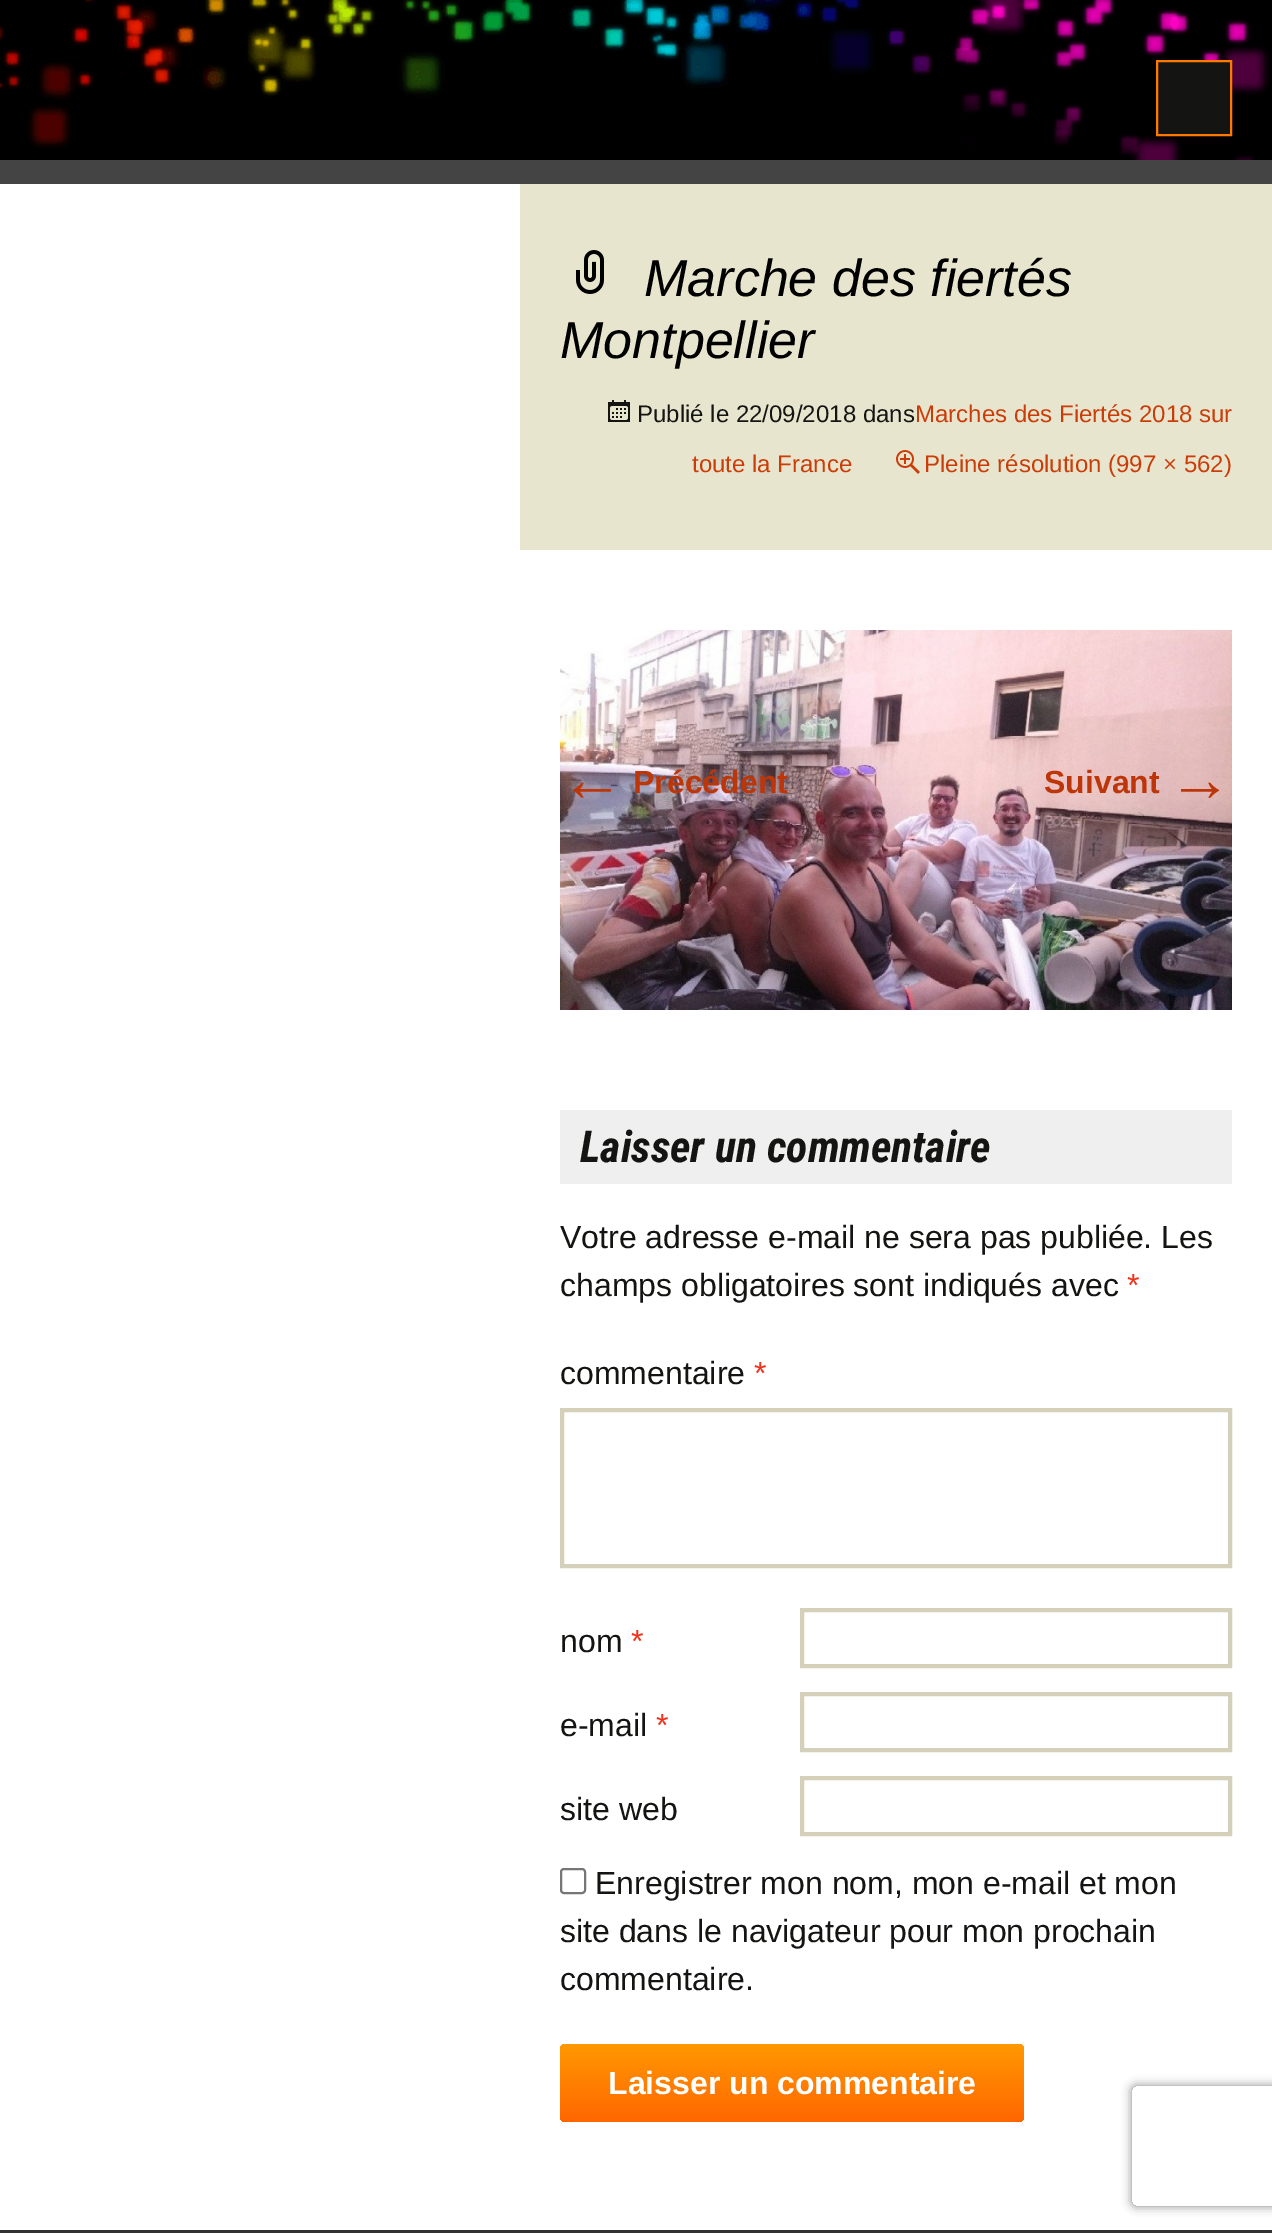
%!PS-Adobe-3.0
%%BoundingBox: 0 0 1272 2233
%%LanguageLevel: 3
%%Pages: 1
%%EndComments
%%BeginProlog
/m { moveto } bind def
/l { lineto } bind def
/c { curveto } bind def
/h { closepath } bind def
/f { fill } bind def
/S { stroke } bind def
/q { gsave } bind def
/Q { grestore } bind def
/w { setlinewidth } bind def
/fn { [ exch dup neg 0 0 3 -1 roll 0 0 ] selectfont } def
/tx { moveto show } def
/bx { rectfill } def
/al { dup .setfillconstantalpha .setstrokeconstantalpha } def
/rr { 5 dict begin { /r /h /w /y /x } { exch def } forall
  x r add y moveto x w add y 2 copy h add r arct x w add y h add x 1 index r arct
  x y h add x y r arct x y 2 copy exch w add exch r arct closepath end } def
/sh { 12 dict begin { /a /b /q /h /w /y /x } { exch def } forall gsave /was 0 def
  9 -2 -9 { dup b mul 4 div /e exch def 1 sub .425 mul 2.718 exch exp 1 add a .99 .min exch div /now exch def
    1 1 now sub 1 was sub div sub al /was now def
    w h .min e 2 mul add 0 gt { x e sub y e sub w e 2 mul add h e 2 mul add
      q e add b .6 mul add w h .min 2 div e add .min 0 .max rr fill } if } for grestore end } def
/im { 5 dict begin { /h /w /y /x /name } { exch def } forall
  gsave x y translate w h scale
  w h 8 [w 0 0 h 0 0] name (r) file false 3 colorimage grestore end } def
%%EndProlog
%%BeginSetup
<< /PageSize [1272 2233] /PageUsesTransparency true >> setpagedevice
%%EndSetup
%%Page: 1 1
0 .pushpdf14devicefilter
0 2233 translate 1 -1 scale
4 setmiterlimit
0 setgray
0 0 1272 2233 bx
(image0.raw) 0 0 1269 160 im
0.078 0.078 0.071 setrgbcolor
1157 61 m 1231 61 l 1231 135 l 1157 135 l h q f Q
1 0.475 0 setrgbcolor
2 w
S
0.267 setgray
0 160 1272 24 bx
1 setgray
0 184 1272 2046 bx
0.91 0.898 0.808 setrgbcolor
520 184 752 366 bx
(image1.raw) 576 250 28 44 im
/LiberationSans-Italic 52 fn
0 setgray
(Marche des fiertés) 644 296 tx
(Montpellier) 560 358 tx
(image2.raw) 608 400 22 22 im
/LiberationSans-Regular 24 fn
0.078 0.078 0.071 setrgbcolor
(Publié le 22/09/2018 dans) 637 422 tx
0.792 0.235 0.031 setrgbcolor
(Marches des Fiertés 2018 sur) 915 422 tx
(toute la France) 692 472 tx
(image3.raw) 896 450 24 24 im
(Pleine résolution \(997 × 562\)) 924 472 tx
(image4.raw) 560 630 672 380 im
/LiberationSans-Regular 64 fn
0.737 0.212 0.039 setrgbcolor
(←) 560 801 tx
/LiberationSans-Bold 32 fn
(Précédent) 633 793 tx
(Suivant) 1044 793 tx
/LiberationSans-Regular 64 fn
(→) 1168 801 tx
0.937 setgray
560 1110 672 74 bx
/RobotoCondensed-BoldItalic 44 fn
0.078 0.078 0.071 setrgbcolor
(Laisser un commentaire) 580 1162 tx
/LiberationSans-Regular 32 fn
(Votre adresse e-mail ne sera pas publiée. Les) 560 1248 tx
(champs obligatoires sont indiqués avec) 560 1296 tx
0.929 0.2 0.11 setrgbcolor
(*) 1127 1296 tx
0.078 0.078 0.071 setrgbcolor
(commentaire) 560 1384 tx
0.929 0.2 0.11 setrgbcolor
(*) 754 1384 tx
0.831 0.816 0.729 setrgbcolor
4 w
562 1410 668 156 rectstroke
0.078 0.078 0.071 setrgbcolor
(nom) 560 1652 tx
0.929 0.2 0.11 setrgbcolor
(*) 631 1652 tx
0.831 0.816 0.729 setrgbcolor
802 1610 428 56 rectstroke
0.078 0.078 0.071 setrgbcolor
(e-mail) 560 1736 tx
0.929 0.2 0.11 setrgbcolor
(*) 656 1736 tx
0.831 0.816 0.729 setrgbcolor
802 1694 428 56 rectstroke
0.078 0.078 0.071 setrgbcolor
(site web) 560 1820 tx
0.831 0.816 0.729 setrgbcolor
802 1778 428 56 rectstroke
0.463 setgray
2 w
561 1869 24 24 3 rr S
0.078 0.078 0.071 setrgbcolor
(Enregistrer mon nom, mon e-mail et mon) 595 1894 tx
(site dans le navigateur pour mon prochain) 560 1942 tx
(commentaire.) 560 1990 tx
q 560 2044 464 78 6 rr clip newpath
<< /ShadingType 2 /ColorSpace /DeviceRGB /Coords [792 2044 792 2122] /Extend [true true] /Function << /FunctionType 2 /Domain [0 1] /C0 [1 0.6 0] /C1 [1 0.4 0] /N 1 >> >> shfill Q
/LiberationSans-Bold 32 fn
1 setgray
(Laisser un commentaire) 608 2094 tx
0.2 setgray
0 2230 1272 3 bx
q
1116 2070 m 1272 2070 l 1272 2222 l 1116 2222 l h 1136 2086 m 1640 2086 l 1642 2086 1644 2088 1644 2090 c 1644 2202 l 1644 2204 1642 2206 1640 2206 c 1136 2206 l 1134 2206 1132 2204 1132 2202 c 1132 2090 l 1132 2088 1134 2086 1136 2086 c h eoclip newpath
0.502 setgray
1132 2086 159 120 4 5 1 sh
Q
.poppdf14devicefilter showpage
%%EOF
